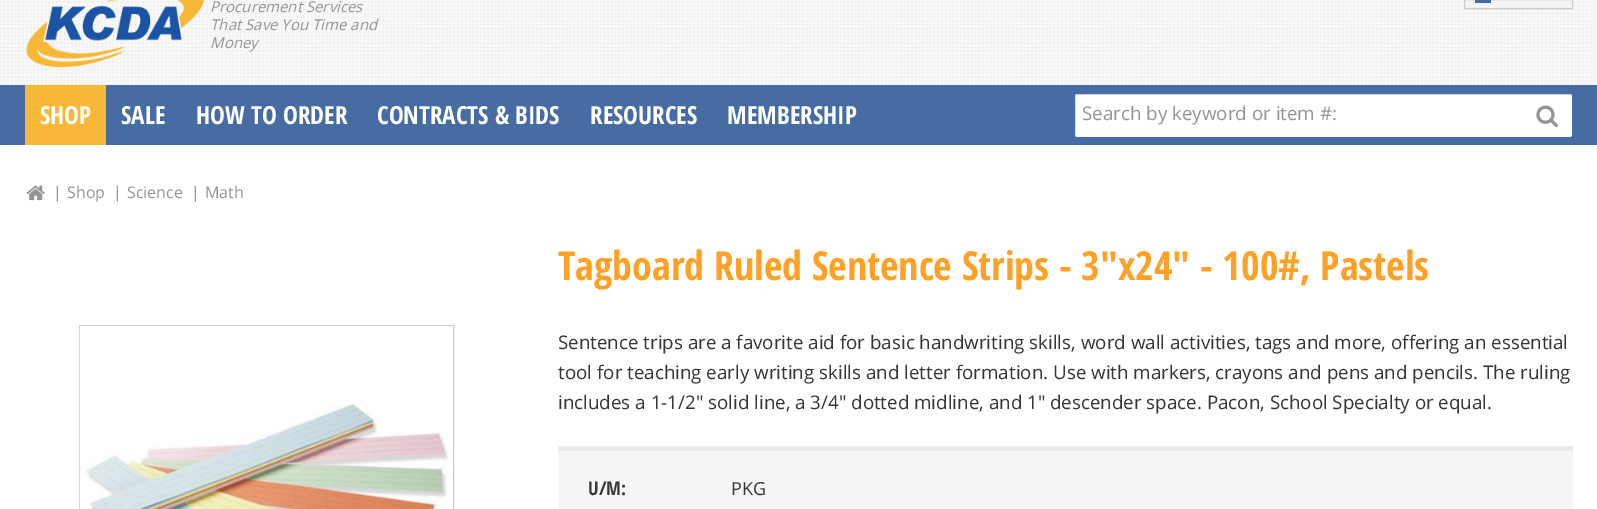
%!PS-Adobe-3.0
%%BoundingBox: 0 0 1597 509
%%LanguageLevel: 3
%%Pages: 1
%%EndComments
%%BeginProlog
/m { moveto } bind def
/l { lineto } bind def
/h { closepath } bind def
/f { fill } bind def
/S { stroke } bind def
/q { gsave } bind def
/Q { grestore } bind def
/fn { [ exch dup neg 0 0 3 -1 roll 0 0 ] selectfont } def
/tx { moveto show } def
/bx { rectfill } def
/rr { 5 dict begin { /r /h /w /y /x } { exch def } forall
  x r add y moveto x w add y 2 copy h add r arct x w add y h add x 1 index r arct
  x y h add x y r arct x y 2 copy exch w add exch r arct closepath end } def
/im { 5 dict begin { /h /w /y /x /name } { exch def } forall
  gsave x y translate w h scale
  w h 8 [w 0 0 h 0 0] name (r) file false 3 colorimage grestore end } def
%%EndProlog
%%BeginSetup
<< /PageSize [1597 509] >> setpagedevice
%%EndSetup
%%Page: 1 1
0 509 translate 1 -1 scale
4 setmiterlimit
1 setgray
0 0 1597 509 bx
0.973 setgray
0 0 1597 85 bx
(image0.raw) 0 1 1595 84 im
(image1.raw) 26 0 179 68 im
/OpenSans-Italic 15 fn
0.584 setgray
(Procurement Services) 210 12 tx
(That Save You Time and) 210 30 tx
(Money) 210 48 tx
0.961 setgray
1464.5 -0.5 m 1572.5 -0.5 l 1572.5 8.5 l 1464.5 8.5 l h q f Q
0.8 setgray
S
0.275 0.424 0.639 setrgbcolor
1475 0 16 3 bx
0 85 1597 60 bx
0.106 0.329 0.647 setrgbcolor
1074 93 499 45 bx
1 setgray
1074.5 93.5 498 44 2 rr q f Q
0.275 0.424 0.639 setrgbcolor
S
/OpenSans-Regular 18.75 fn
0.584 setgray
(Search by keyword or item #:) 1082 120 tx
(image2.raw) 1536 105 22 23 im
0.973 0.722 0.216 setrgbcolor
25 85 81 60 bx
/OpenSansCondensed-Bold 25 fn
1 setgray
(SHOP) 40 124 tx
(SALE) 121 124 tx
(HOW TO ORDER) 196 124 tx
(CONTRACTS & BIDS) 377 124 tx
(RESOURCES) 590 124 tx
(MEMBERSHIP) 727 124 tx
(image3.raw) 26 185 19 16 im
/OpenSans-Regular 16 fn
0.584 setgray
(|) 53 198 tx
(Shop) 67 198 tx
(|) 113 198 tx
(Science) 127 198 tx
(|) 191 198 tx
(Math) 205 198 tx
/OpenSansCondensed-Bold 40 fn
1 0.627 0.153 setrgbcolor
(Tagboard Ruled Sentence Strips - 3"x24" - 100#, Pastels) 558 280 tx
0.8 setgray
79.5 325.5 374 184 rectstroke
(image4.raw) 79 326 370 183 im
/OpenSans-Regular 18.75 fn
0.212 setgray
(Sentence trips are a favorite aid for basic handwriting skills, word wall activities, tags and more, offering an essential) 558 349 tx
(tool for teaching early writing skills and letter formation. Use with markers, crayons and pens and pencils. The ruling) 558 379 tx
(includes a 1-1/2" solid line, a 3/4" dotted midline, and 1" descender space. Pacon, School Specialty or equal.) 558 409 tx
0.961 setgray
558 451 1015 58 bx
0.922 setgray
558 446 1015 5 bx
/OpenSansCondensed-Bold 18.75 fn
0.212 setgray
(U/M:) 588 495 tx
/OpenSans-Regular 18 fn
(PKG) 731 495 tx
showpage
%%EOF
